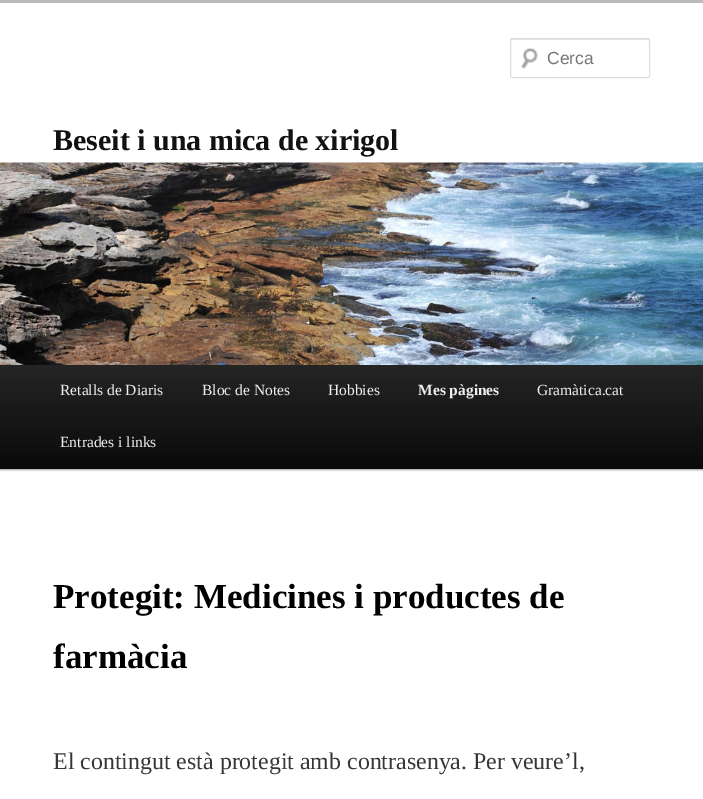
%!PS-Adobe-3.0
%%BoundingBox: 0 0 703 799
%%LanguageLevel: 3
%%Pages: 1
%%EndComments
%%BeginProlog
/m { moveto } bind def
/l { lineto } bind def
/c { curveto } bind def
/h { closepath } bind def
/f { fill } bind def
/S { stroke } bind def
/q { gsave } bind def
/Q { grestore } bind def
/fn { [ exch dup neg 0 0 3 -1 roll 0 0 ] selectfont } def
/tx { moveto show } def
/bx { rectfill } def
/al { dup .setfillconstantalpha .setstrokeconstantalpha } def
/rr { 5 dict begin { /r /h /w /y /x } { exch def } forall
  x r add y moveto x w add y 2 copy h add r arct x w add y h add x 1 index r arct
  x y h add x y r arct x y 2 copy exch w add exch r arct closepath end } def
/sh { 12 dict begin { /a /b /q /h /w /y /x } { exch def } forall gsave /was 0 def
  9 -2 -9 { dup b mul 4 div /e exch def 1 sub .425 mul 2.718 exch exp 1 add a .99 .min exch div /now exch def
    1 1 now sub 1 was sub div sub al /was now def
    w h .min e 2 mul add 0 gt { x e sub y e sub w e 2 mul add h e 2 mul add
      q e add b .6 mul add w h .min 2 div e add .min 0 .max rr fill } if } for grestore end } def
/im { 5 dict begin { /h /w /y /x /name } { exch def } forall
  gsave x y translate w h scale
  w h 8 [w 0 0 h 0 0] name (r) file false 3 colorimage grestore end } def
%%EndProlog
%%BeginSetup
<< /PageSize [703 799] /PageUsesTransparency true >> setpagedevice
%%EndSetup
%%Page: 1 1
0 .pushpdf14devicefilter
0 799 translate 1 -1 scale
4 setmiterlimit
1 setgray
0 0 703 799 bx
0.733 setgray
0 0 703 3 bx
(image0.raw) 521 47 17 22 im
0.902 setgray
512 40 m 648 40 l 649 41 l 649 40 649 39 648 39 c 512 39 l 511 39 511 40 511 41 c h f
0.867 setgray
510.5 38.5 139 39 2 rr S
/LiberationSans-Regular 17.5 fn
0.459 setgray
(Cerca) 547 64 tx
/LiberationSerif-Bold 30 fn
0.067 setgray
(Beseit i una mica de xirigol) 53 150 tx
0 setgray
0 366 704 104 0 1 0.4 sh
(image1.raw) 0 162 703 203 im
q 0 365 m 703 365 l 703 469 l 0 469 l h clip newpath
<< /ShadingType 2 /ColorSpace /DeviceRGB /Coords [352 365 352 469] /Extend [true true] /Function << /FunctionType 2 /Domain [0 1] /C0 [0.145 0.145 0.145] /C1 [0.039 0.039 0.039] /N 1 >> >> shfill Q
/LiberationSerif-Regular 15.5 fn
0.933 setgray
(Retalls de Diaris) 60 395 tx
(Bloc de Notes) 202 395 tx
(Hobbies) 328 395 tx
/LiberationSerif-Bold 15.5 fn
(Mes pàgines) 418 395 tx
/LiberationSerif-Regular 15.5 fn
(Gramàtica.cat) 537 395 tx
(Entrades i links) 60 447 tx
/LiberationSerif-Bold 35 fn
0 setgray
(Protegit: Medicines i productes de) 53 608 tx
(farmàcia) 53 668 tx
/LiberationSerif-Regular 23.9 fn
0.216 setgray
(El contingut està protegit amb contrasenya. Per veure’l,) 53 769 tx
.poppdf14devicefilter showpage
%%EOF
